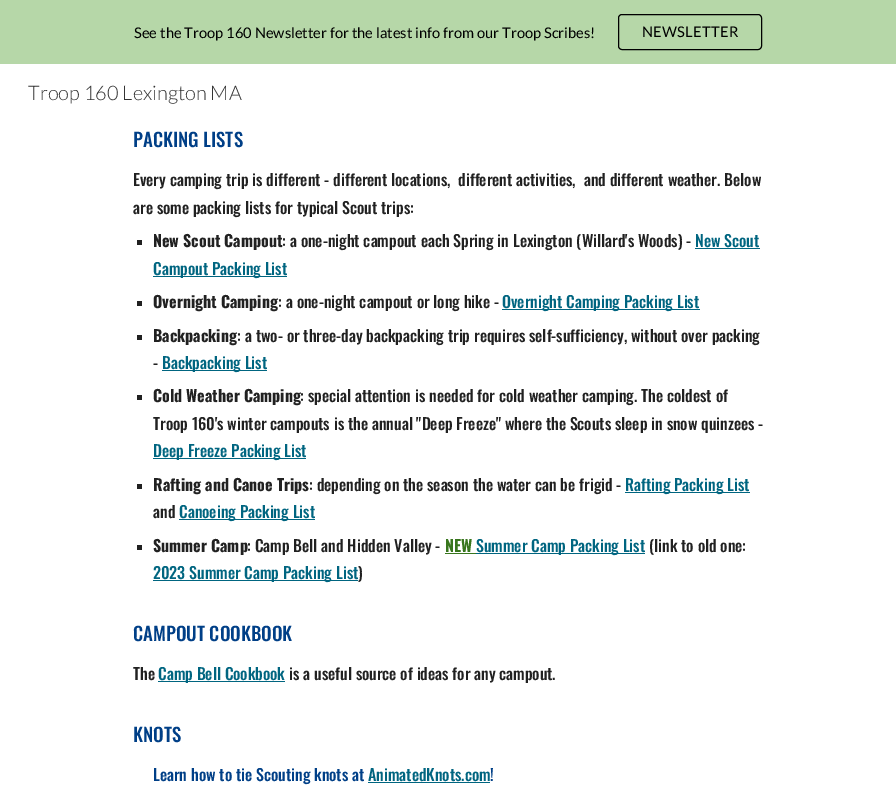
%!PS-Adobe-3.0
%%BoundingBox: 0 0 896 804
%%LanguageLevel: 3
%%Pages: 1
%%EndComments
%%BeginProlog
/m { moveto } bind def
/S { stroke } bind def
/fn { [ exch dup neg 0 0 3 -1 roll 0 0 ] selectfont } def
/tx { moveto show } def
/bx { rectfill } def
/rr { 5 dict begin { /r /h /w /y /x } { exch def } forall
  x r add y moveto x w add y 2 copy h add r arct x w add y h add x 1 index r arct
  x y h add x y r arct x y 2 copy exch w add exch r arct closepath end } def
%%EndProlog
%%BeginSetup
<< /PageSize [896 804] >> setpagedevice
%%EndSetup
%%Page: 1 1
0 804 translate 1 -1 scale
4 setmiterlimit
1 setgray
0 0 896 804 bx
0.714 0.843 0.659 setrgbcolor
0 0 896 64 bx
/Lato-Regular 14.7 fn
0 setgray
(See the Troop 160 Newsletter for the latest info from our Troop Scribes!) 134 38 tx
618.5 14.5 143 35 3.5 rr S
642 37 m 0.25 0 (NEWSLETTER) ashow
/Lato-Light 20 fn
0.2 setgray
(Troop 160 Lexington MA) 28 100 tx
/Oswald-Medium 18.75 fn
0 0.247 0.529 setrgbcolor
(PACKING LISTS) 133 147 tx
/Oswald-Medium 16 fn
0.129 setgray
(Every camping trip is different - different locations,  different activities,  and different weather. Below) 133 186 tx
(are some packing lists for typical Scout trips:) 133 214 tx
137 240 5 5 bx
/Oswald-Bold 16 fn
(New Scout Campout) 153 247 tx
/Oswald-Medium 16 fn
(: a one-night campout each Spring in Lexington \(Willard's Woods\) -) 282 247 tx
0 0.396 0.502 setrgbcolor
(New Scout) 695 247 tx
695 248 65 1 bx
153 276 134 1 bx
(Campout Packing List) 153 275 tx
0.129 setgray
137 301 5 5 bx
/Oswald-Bold 16 fn
(Overnight Camping) 153 308 tx
/Oswald-Medium 16 fn
(: a one-night campout or long hike -) 278 308 tx
0 0.396 0.502 setrgbcolor
502 309 198 1 bx
(Overnight Camping Packing List) 502 308 tx
0.129 setgray
137 335 5 5 bx
/Oswald-Bold 16 fn
(Backpacking) 153 342 tx
/Oswald-Medium 16 fn
(: a two- or three-day backpacking trip requires self-sufficiency, without over packing) 237 342 tx
(-) 153 369 tx
0 0.396 0.502 setrgbcolor
162 370 105 1 bx
(Backpacking List) 162 369 tx
0.129 setgray
137 395 5 5 bx
/Oswald-Bold 16 fn
(Cold Weather Camping) 153 402 tx
/Oswald-Medium 16 fn
(: special attention is needed for cold weather camping. The coldest of) 300 402 tx
(Troop 160's winter campouts is the annual "Deep Freeze" where the Scouts sleep in snow quinzees -) 153 430 tx
0 0.396 0.502 setrgbcolor
153 458 153 1 bx
(Deep Freeze Packing List) 153 457 tx
0.129 setgray
137 484 5 5 bx
/Oswald-Bold 16 fn
(Rafting and Canoe Trips) 153 491 tx
/Oswald-Medium 16 fn
(: depending on the season the water can be frigid -) 309 491 tx
0 0.396 0.502 setrgbcolor
625 492 125 1 bx
(Rafting Packing List) 625 491 tx
0.129 setgray
(and) 153 518 tx
0 0.396 0.502 setrgbcolor
179 519 136 1 bx
(Canoeing Packing List) 179 518 tx
0.129 setgray
137 545 5 5 bx
/Oswald-Bold 16 fn
(Summer Camp) 153 552 tx
/Oswald-Medium 16 fn
(: Camp Bell and Hidden Valley -) 247 552 tx
/Oswald-Bold 16 fn
0.22 0.463 0.114 setrgbcolor
(NEW) 445 552 tx
0 0.396 0.502 setrgbcolor
476 553 169 1 bx
/Oswald-Medium 16 fn
(Summer Camp Packing List) 476 552 tx
0.22 0.463 0.114 setrgbcolor
445 553 31 1 bx
0.129 setgray
(\(link to old one:) 649 552 tx
0 0.396 0.502 setrgbcolor
153 580 205 1 bx
(2023 Summer Camp Packing List) 153 579 tx
0.129 setgray
(\)) 358 579 tx
/Oswald-Medium 18.75 fn
0 0.247 0.529 setrgbcolor
(CAMPOUT COOKBOOK) 133 641 tx
/Oswald-Medium 16 fn
0.129 setgray
(The) 133 680 tx
0 0.396 0.502 setrgbcolor
158 681 127 1 bx
(Camp Bell Cookbook) 158 680 tx
0.129 setgray
(is a useful source of ideas for any campout.) 289 680 tx
/Oswald-Medium 18.75 fn
0 0.247 0.529 setrgbcolor
(KNOTS) 133 742 tx
/Oswald-Medium 16 fn
(Learn how to tie Scouting knots at) 153 781 tx
0 0.396 0.502 setrgbcolor
(AnimatedKnots.com) 368 781 tx
368 782 122 1 bx
0 0.247 0.529 setrgbcolor
(!) 490 781 tx
showpage
%%EOF
